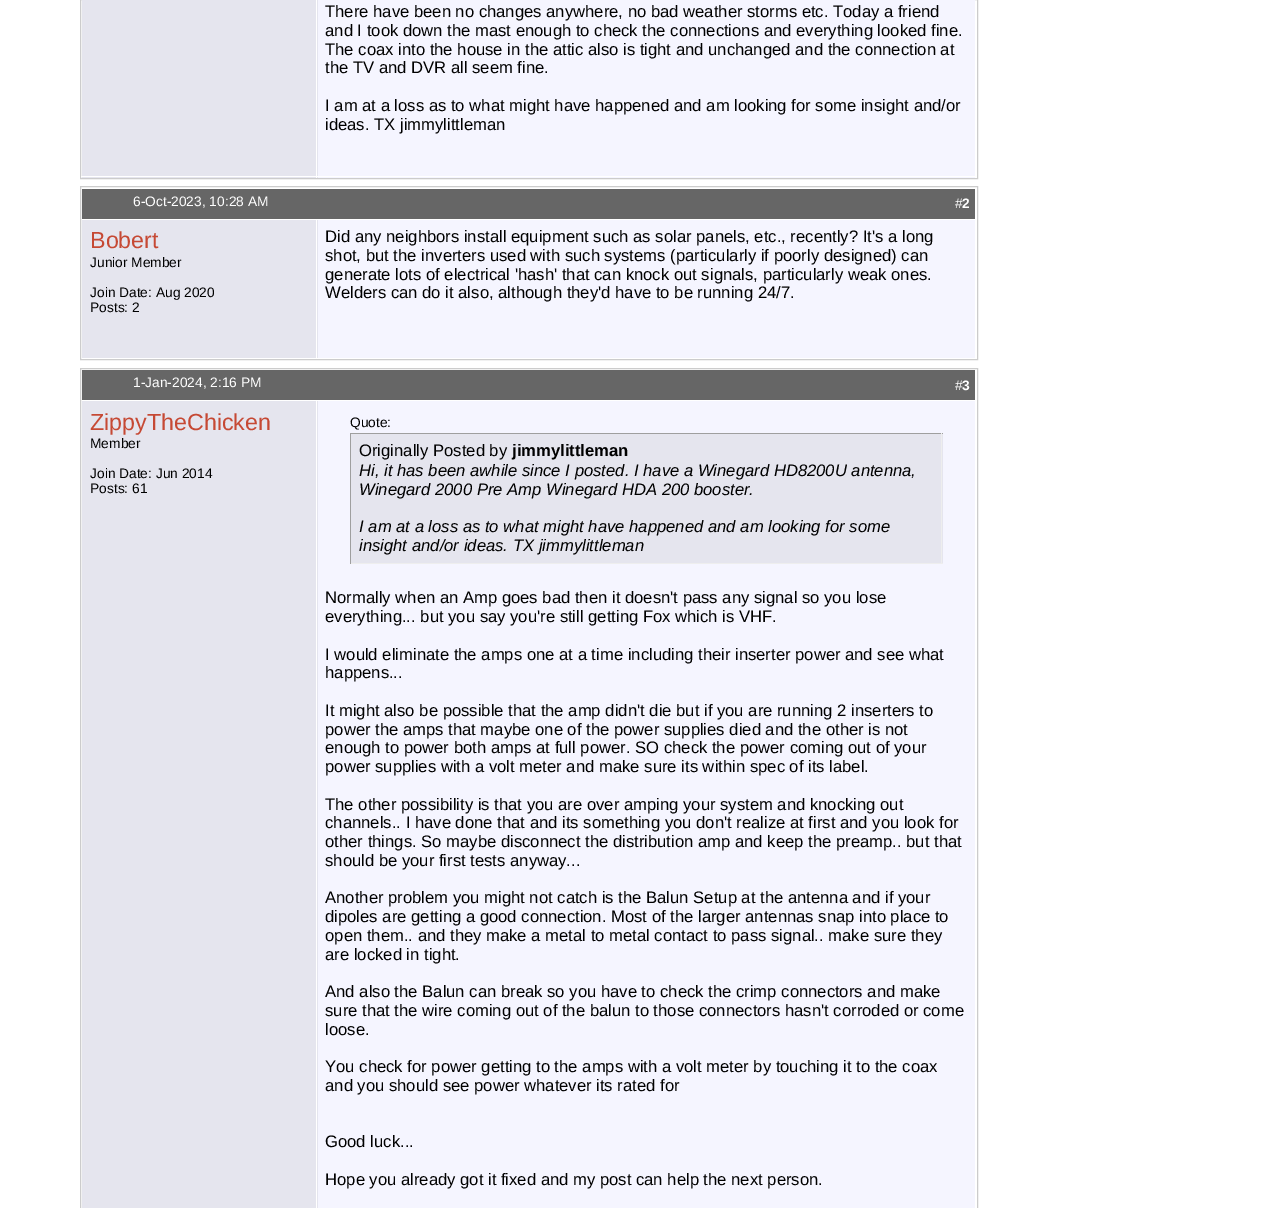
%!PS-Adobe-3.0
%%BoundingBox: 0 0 1273 1208
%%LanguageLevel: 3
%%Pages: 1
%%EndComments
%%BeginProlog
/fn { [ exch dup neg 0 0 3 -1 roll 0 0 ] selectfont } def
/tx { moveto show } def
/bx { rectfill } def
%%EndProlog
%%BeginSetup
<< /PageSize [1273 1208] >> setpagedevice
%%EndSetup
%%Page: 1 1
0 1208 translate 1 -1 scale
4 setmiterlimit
1 setgray
0 0 1273 1208 bx
0.8 setgray
80.5 -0.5 897 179 rectstroke
0.898 0.898 0.933 setrgbcolor
82 0 236 178 bx
1 setgray
316 0 1 178 bx
0.961 0.961 1 setrgbcolor
318 0 657 178 bx
/LiberationSans-Regular 16.65 fn
0 setgray
(There have been no changes anywhere, no bad weather storms etc. Today a friend) 325 17 tx
(and I took down the mast enough to check the connections and everything looked fine.) 325 36 tx
(The coax into the house in the attic also is tight and unchanged and the connection at) 325 55 tx
(the TV and DVR all seem fine.) 325 73 tx
(I am at a loss as to what might have happened and am looking for some insight and/or) 325 111 tx
(ideas. TX jimmylittleman) 325 130 tx
1 setgray
81 176 895 1 bx
0.8 setgray
80.5 186.5 897 173 rectstroke
0.4 setgray
82 189 893 30 bx
/LiberationSans-Regular 13.75 fn
1 setgray
(6-Oct-2023, 10:28 AM) 133 206 tx
(#) 955 208 tx
/LiberationSans-Bold 13.75 fn
(2) 962 208 tx
0.898 0.898 0.933 setrgbcolor
82 220 236 138 bx
1 setgray
316 220 1 139 bx
/LiberationSans-Regular 23.25 fn
0.776 0.286 0.204 setrgbcolor
(Bobert) 90 248 tx
/LiberationSans-Regular 13.75 fn
0 setgray
(Junior Member) 90 267 tx
(Join Date: Aug 2020) 90 297 tx
(Posts: 2) 90 312 tx
0.961 0.961 1 setrgbcolor
318 220 657 138 bx
/LiberationSans-Regular 16.65 fn
0 setgray
(Did any neighbors install equipment such as solar panels, etc., recently? It's a long) 325 242 tx
(shot, but the inverters used with such systems \(particularly if poorly designed\) can) 325 261 tx
(generate lots of electrical 'hash' that can knock out signals, particularly weak ones.) 325 280 tx
(Welders can do it also, although they'd have to be running 24/7.) 325 298 tx
0.8 setgray
80.5 368.5 897 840 rectstroke
0.4 setgray
82 370 893 30 bx
/LiberationSans-Regular 13.75 fn
1 setgray
(1-Jan-2024, 2:16 PM) 133 387 tx
(#) 955 390 tx
/LiberationSans-Bold 13.75 fn
(3) 962 390 tx
0.898 0.898 0.933 setrgbcolor
82 401 236 807 bx
1 setgray
316 401 1 807 bx
/LiberationSans-Regular 23.25 fn
0.776 0.286 0.204 setrgbcolor
(ZippyTheChicken) 90 430 tx
/LiberationSans-Regular 13.75 fn
0 setgray
(Member) 90 448 tx
(Join Date: Jun 2014) 90 478 tx
(Posts: 61) 90 493 tx
0.961 0.961 1 setrgbcolor
318 401 657 807 bx
0 setgray
(Quote:) 350 427 tx
0.898 0.898 0.933 setrgbcolor
351 434 592 129 bx
0.624 setgray
350 433 593 1 bx
0.933 setgray
941 433 1 131 bx
350 563 593 1 bx
0.624 setgray
350 433 1 131 bx
/LiberationSans-Regular 16.65 fn
0 setgray
(Originally Posted by) 359 456 tx
/LiberationSans-Bold 16.65 fn
(jimmylittleman) 512 456 tx
/LiberationSans-Italic 16.65 fn
(Hi, it has been awhile since I posted. I have a Winegard HD8200U antenna,) 359 476 tx
(Winegard 2000 Pre Amp Winegard HDA 200 booster.) 359 495 tx
(I am at a loss as to what might have happened and am looking for some) 359 532 tx
(insight and/or ideas. TX jimmylittleman) 359 551 tx
/LiberationSans-Regular 16.65 fn
(Normally when an Amp goes bad then it doesn't pass any signal so you lose) 325 603 tx
(everything... but you say you're still getting Fox which is VHF.) 325 622 tx
(I would eliminate the amps one at a time including their inserter power and see what) 325 660 tx
(happens...) 325 678 tx
(It might also be possible that the amp didn't die but if you are running 2 inserters to) 325 716 tx
(power the amps that maybe one of the power supplies died and the other is not) 325 735 tx
(enough to power both amps at full power. SO check the power coming out of your) 325 753 tx
(power supplies with a volt meter and make sure its within spec of its label.) 325 772 tx
(The other possibility is that you are over amping your system and knocking out) 325 810 tx
(channels.. I have done that and its something you don't realize at first and you look for) 325 828 tx
(other things. So maybe disconnect the distribution amp and keep the preamp.. but that) 325 847 tx
(should be your first tests anyway...) 325 866 tx
(Another problem you might not catch is the Balun Setup at the antenna and if your) 325 903 tx
(dipoles are getting a good connection. Most of the larger antennas snap into place to) 325 922 tx
(open them.. and they make a metal to metal contact to pass signal.. make sure they) 325 941 tx
(are locked in tight.) 325 960 tx
(And also the Balun can break so you have to check the crimp connectors and make) 325 997 tx
(sure that the wire coming out of the balun to those connectors hasn't corroded or come) 325 1016 tx
(loose.) 325 1035 tx
(You check for power getting to the amps with a volt meter by touching it to the coax) 325 1072 tx
(and you should see power whatever its rated for) 325 1091 tx
(Good luck...) 325 1147 tx
(Hope you already got it fixed and my post can help the next person.) 325 1185 tx
showpage
%%EOF
